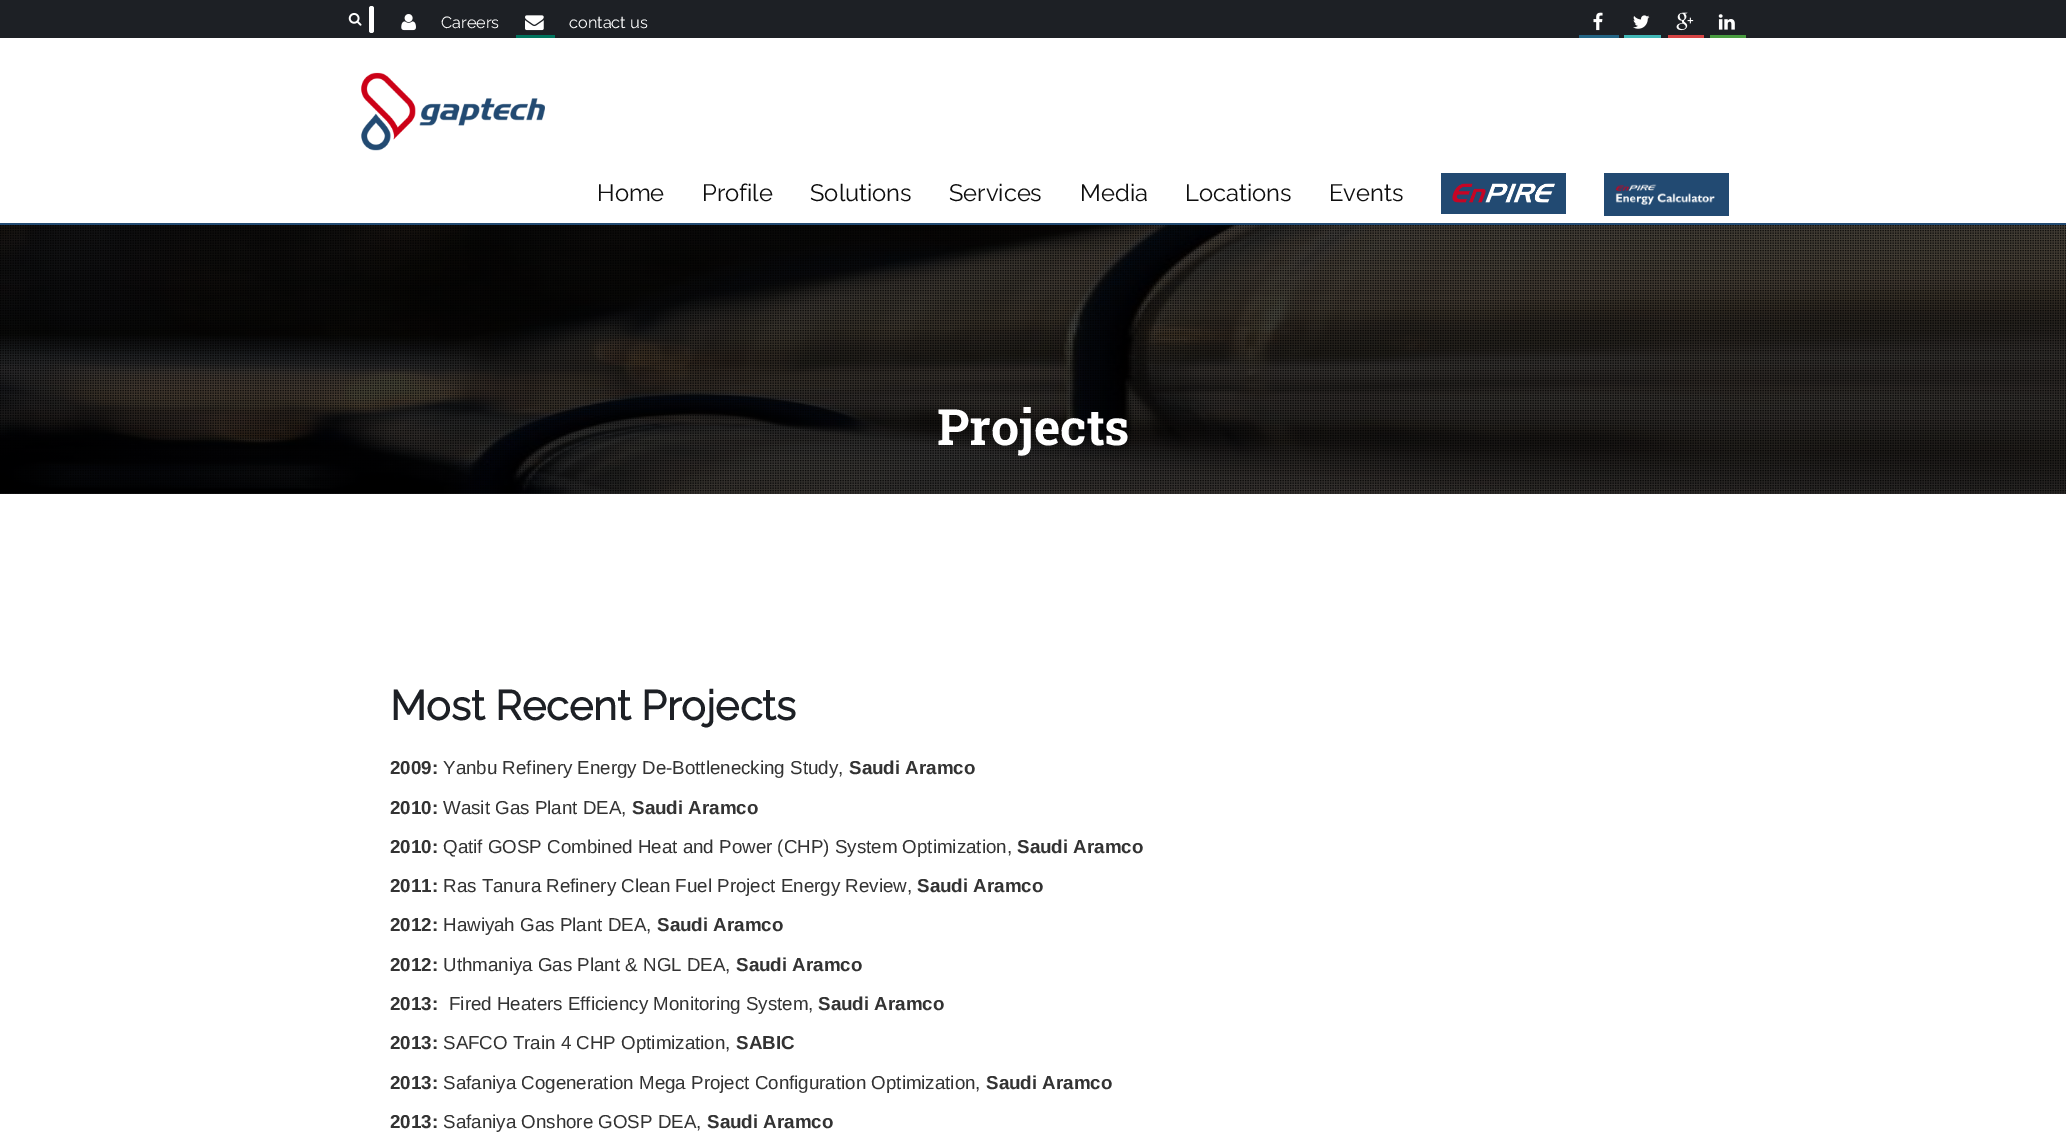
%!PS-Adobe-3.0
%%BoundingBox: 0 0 2066 1142
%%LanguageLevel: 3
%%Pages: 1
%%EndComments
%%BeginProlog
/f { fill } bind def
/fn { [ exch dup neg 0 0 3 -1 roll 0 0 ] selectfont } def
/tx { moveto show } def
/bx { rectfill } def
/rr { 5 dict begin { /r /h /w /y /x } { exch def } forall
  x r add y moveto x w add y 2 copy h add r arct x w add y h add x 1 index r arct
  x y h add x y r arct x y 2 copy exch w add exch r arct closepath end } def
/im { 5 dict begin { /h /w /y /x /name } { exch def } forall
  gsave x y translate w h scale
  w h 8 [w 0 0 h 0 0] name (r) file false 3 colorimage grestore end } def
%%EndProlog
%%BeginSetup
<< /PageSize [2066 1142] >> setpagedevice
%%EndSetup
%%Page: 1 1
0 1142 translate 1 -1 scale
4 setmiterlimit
1 setgray
0 0 2066 1142 bx
0.114 0.125 0.145 setrgbcolor
0 0 2066 38 bx
(image0.raw) 348 12 14 14 im
1 setgray
369 6 5 27 2.5 rr f
(image1.raw) 401 14 15 17 im
/Raleway-Thin 16.25 fn
(Careers) 441 28 tx
(image2.raw) 525 15 19 16 im
0 0.455 0.369 setrgbcolor
516 35 39 3 bx
1 setgray
(contact us) 569 28 tx
(image3.raw) 1593 12 10 19 im
0.141 0.4 0.525 setrgbcolor
1579 35 40 3 bx
(image4.raw) 1633 15 17 14 im
0.255 0.722 0.718 setrgbcolor
1624 35 37 3 bx
(image5.raw) 1676 12 18 19 im
0.839 0.267 0.267 setrgbcolor
1668 35 36 3 bx
(image6.raw) 1718 14 17 16 im
0.286 0.612 0.251 setrgbcolor
1710 35 36 3 bx
0.133 0.29 0.447 setrgbcolor
0 223 2066 2 bx
(image7.raw) 361 72 184 79 im
/Raleway-Thin 23.75 fn
0.059 setgray
(Home) 597 201 tx
(Profile) 702 201 tx
(Solutions) 810 201 tx
(Services) 949 201 tx
(Media) 1080 201 tx
(Locations) 1185 201 tx
(Events) 1329 201 tx
0.133 0.29 0.447 setrgbcolor
1441 173 125 41 bx
(image8.raw) 1452 183 103 20 im
1604 173 125 43 bx
(image9.raw) 1615 184 100 21 im
(image10.raw) 0 225 2066 269 im
(image11.raw) 0 225 2066 269 im
/RobotoSlab-Bold 50 fn
1 setgray
(Projects) 937 445 tx
/Raleway-Bold 41.25 fn
0.114 0.125 0.145 setrgbcolor
(Most Recent Projects) 390 720 tx
/LiberationSans-Bold 18.75 fn
0.2 setgray
(2009:) 390 774 tx
/LiberationSans-Regular 18.75 fn
(Yanbu Refinery Energy De-Bottlenecking Study,) 443 774 tx
/LiberationSans-Bold 18.75 fn
(Saudi Aramco) 849 774 tx
(2010:) 390 814 tx
/LiberationSans-Regular 18.75 fn
(Wasit Gas Plant DEA,) 443 814 tx
/LiberationSans-Bold 18.75 fn
(Saudi Aramco) 632 814 tx
(2010:) 390 853 tx
/LiberationSans-Regular 18.75 fn
(Qatif GOSP Combined Heat and Power \(CHP\) System Optimization,) 443 853 tx
/LiberationSans-Bold 18.75 fn
(Saudi Aramco) 1017 853 tx
(2011:) 390 892 tx
/LiberationSans-Regular 18.75 fn
(Ras Tanura Refinery Clean Fuel Project Energy Review,) 443 892 tx
/LiberationSans-Bold 18.75 fn
(Saudi Aramco) 917 892 tx
(2012:) 390 931 tx
/LiberationSans-Regular 18.75 fn
(Hawiyah Gas Plant DEA,) 443 931 tx
/LiberationSans-Bold 18.75 fn
(Saudi Aramco) 657 931 tx
(2012:) 390 971 tx
/LiberationSans-Regular 18.75 fn
(Uthmaniya Gas Plant & NGL DEA,) 443 971 tx
/LiberationSans-Bold 18.75 fn
(Saudi Aramco) 736 971 tx
(2013:) 390 1010 tx
/LiberationSans-Regular 18.75 fn
(Fired Heaters Efficiency Monitoring System,) 449 1010 tx
/LiberationSans-Bold 18.75 fn
(Saudi Aramco) 818 1010 tx
(2013:) 390 1049 tx
/LiberationSans-Regular 18.75 fn
(SAFCO Train 4 CHP Optimization,) 443 1049 tx
/LiberationSans-Bold 18.75 fn
(SABIC) 736 1049 tx
(2013:) 390 1089 tx
/LiberationSans-Regular 18.75 fn
(Safaniya Cogeneration Mega Project Configuration Optimization,) 443 1089 tx
/LiberationSans-Bold 18.75 fn
(Saudi Aramco) 986 1089 tx
(2013:) 390 1128 tx
/LiberationSans-Regular 18.75 fn
(Safaniya Onshore GOSP DEA,) 443 1128 tx
/LiberationSans-Bold 18.75 fn
(Saudi Aramco) 707 1128 tx
showpage
%%EOF
